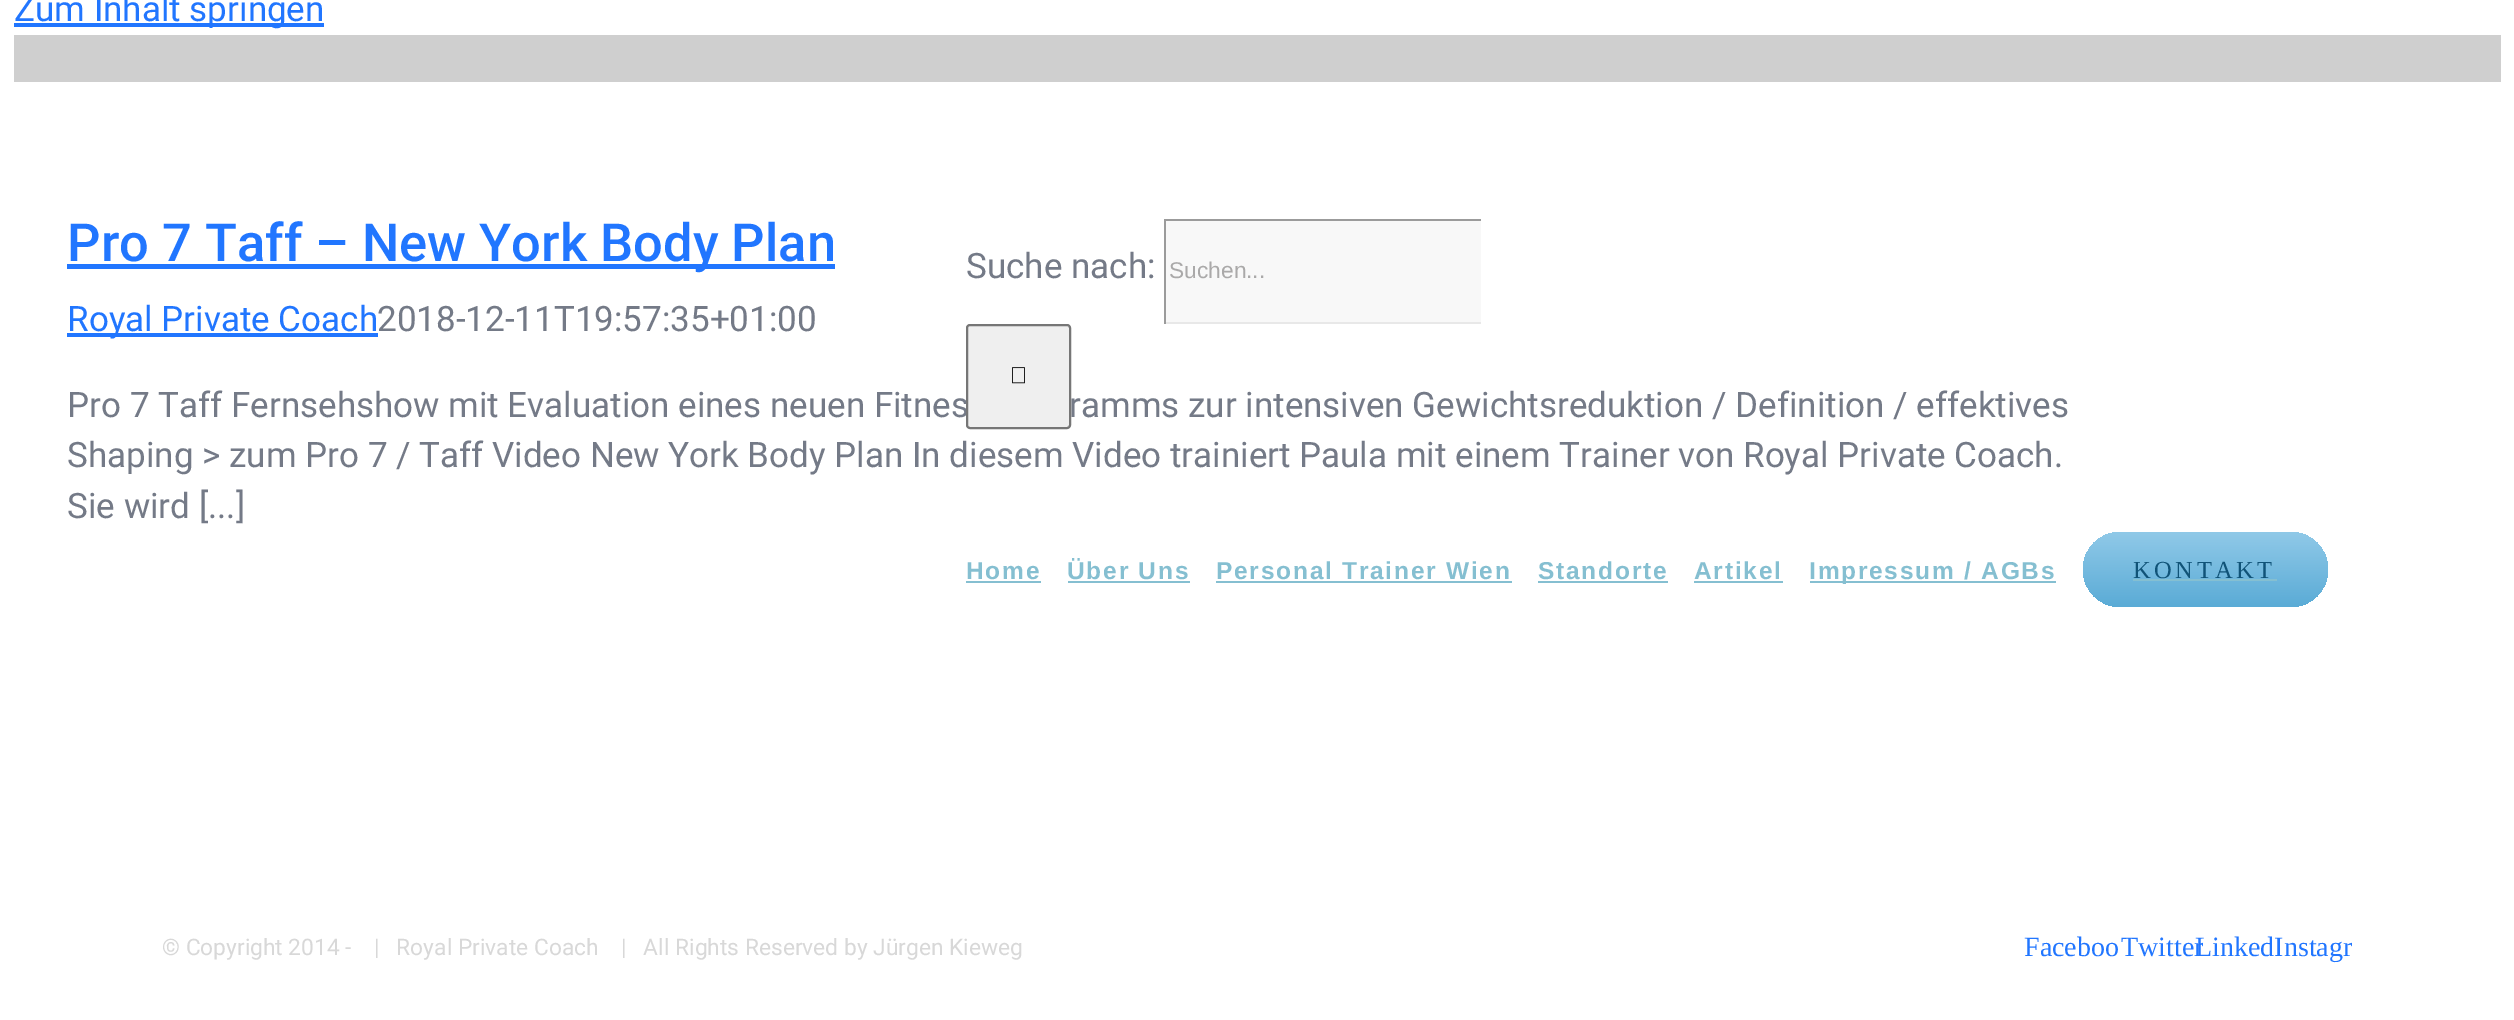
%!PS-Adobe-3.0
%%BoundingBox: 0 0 2514 1020
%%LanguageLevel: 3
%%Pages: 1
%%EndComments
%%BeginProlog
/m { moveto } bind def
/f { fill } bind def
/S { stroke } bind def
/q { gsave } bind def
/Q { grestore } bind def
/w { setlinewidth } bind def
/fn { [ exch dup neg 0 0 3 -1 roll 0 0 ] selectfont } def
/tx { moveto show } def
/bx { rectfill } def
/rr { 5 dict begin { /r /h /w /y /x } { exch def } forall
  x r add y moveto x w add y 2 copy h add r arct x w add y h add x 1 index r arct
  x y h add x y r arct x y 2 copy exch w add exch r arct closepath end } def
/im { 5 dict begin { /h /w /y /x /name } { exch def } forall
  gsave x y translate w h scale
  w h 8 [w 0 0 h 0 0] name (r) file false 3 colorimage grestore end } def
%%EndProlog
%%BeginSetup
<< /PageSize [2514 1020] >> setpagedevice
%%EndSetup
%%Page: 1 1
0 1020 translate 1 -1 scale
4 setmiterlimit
1 setgray
0 0 2514 1020 bx
0.129 0.463 1 setrgbcolor
14 23 310 4 bx
/Roboto-Regular 35 fn
(Zum Inhalt springen) 14 21 tx
67 264 768 5 bx
/Roboto-Medium 52.5 fn
(Pro 7 Taff – New York Body Plan) 67 261 tx
67 333 311 4 bx
/Roboto-Regular 35 fn
(Royal Private Coach) 67 331 tx
0.455 0.478 0.529 setrgbcolor
(2018-12-11T19:57:35+01:00) 377 331 tx
(Pro 7 Taff Fernsehshow mit Evaluation eines neuen Fitnes) 67 417 tx
(ramms zur intensiven Gewichtsreduktion / Definition / effektives) 1069 417 tx
(Shaping > zum Pro 7 / Taff Video New York Body Plan In diesem Video trainiert Paula mit einem Trainer von Royal Private Coach.) 67 467 tx
(Sie wird [...]) 67 518 tx
0.812 setgray
14 35 2487 47 bx
0.455 0.478 0.529 setrgbcolor
(Suche nach:) 966 278 tx
0.973 setgray
1166 221 315 101 bx
0.608 setgray
1164 219 317 2 bx
0.91 setgray
1164 322 317 2 bx
0.608 setgray
1164 219 2 105 bx
/LiberationSans-Regular 22.75 fn
0.667 0.663 0.663 setrgbcolor
(Suchen...) 1169 278 tx
0.937 setgray
967 325 103 103 3 rr q f Q
0.463 setgray
2 w
S
(image0.raw) 1012 367 13 17 im
/LiberationSans-Bold 24.5 fn
0.522 0.749 0.82 setrgbcolor
966 579 m 1.75 0 (Home) ashow
966 581 75 2 bx
1067 579 m 1.75 0 (Über Uns) ashow
1068 581 122 2 bx
1216 579 m 1.75 0 (Personal Trainer Wien) ashow
1216 581 296 2 bx
1538 579 m 1.75 0 (Standorte) ashow
1538 581 130 2 bx
1694 579 m 1.75 0 (Artikel) ashow
1694 581 89 2 bx
1810 581 246 2 bx
1809 579 m 1.75 0 (Impressum / AGBs) ashow
q 2083 532 245 75 37.5 rr clip newpath
<< /ShadingType 2 /ColorSpace /DeviceRGB /Coords [2205 532 2205 607] /Extend [true true] /Function << /FunctionType 2 /Domain [0 1] /C0 [0.565 0.788 0.91] /C1 [0.353 0.671 0.839] /N 1 >> >> shfill Q
/LiberationSerif-Regular 24.5 fn
0.063 0.325 0.471 setrgbcolor
2133 578 m 3.5 0 (KONTAKT) ashow
0.522 0.749 0.82 setrgbcolor
2133 579 144 2 bx
/Roboto-Regular 22.75 fn
0.847 setgray
(© Copyright 2014 -) 162 955 tx
(|   Royal Private Coach) 374 955 tx
(|   All Rights Reserved by Jürgen Kieweg) 621 955 tx
/LiberationSerif-Regular 28 fn
0.129 0.463 1 setrgbcolor
(Faceboo) 2024 956 tx
(Twitter) 2121 956 tx
1 setgray
2204 915 65 64 32 rr q f Q
S
0.129 0.463 1 setrgbcolor
(LinkedInstagr) 2195 956 tx
showpage
%%EOF
